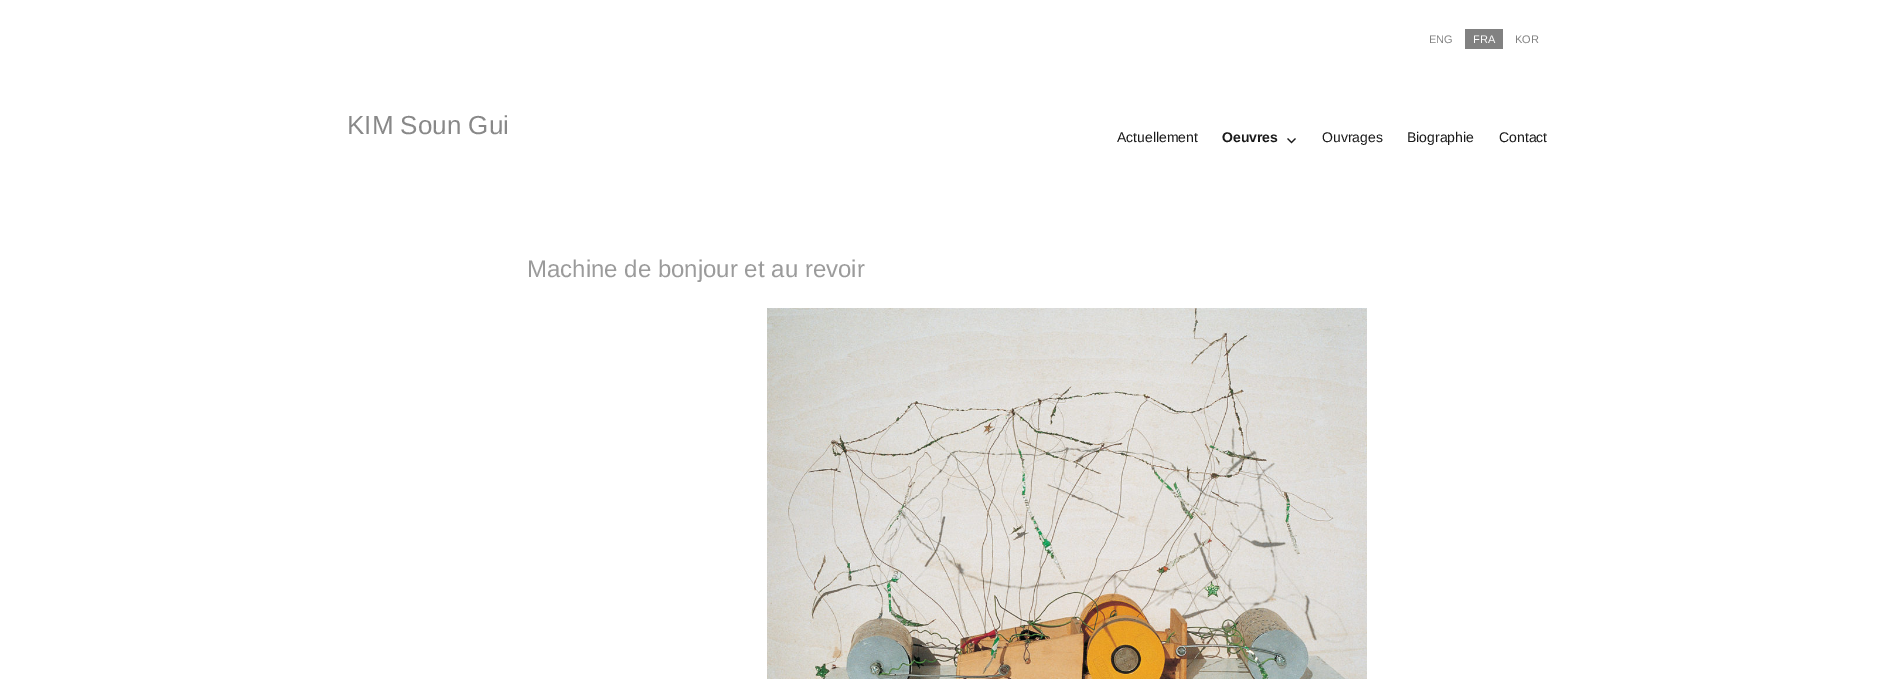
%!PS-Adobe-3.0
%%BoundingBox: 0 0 1894 679
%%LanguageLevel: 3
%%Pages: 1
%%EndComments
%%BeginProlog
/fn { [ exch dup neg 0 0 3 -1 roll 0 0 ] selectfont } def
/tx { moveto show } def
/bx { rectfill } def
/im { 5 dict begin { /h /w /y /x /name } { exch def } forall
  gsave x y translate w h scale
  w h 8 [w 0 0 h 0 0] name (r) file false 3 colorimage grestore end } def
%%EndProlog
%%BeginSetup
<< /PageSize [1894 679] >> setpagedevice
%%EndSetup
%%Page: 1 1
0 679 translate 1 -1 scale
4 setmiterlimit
1 setgray
0 0 1894 679 bx
/LiberationSans-Regular 11 fn
0.506 setgray
(ENG) 1429 43 tx
1465 29 38 20 bx
1 setgray
(FRA) 1473 43 tx
0.506 setgray
(KOR) 1515 43 tx
/LiberationSans-Regular 26 fn
0.533 setgray
(KIM Soun Gui) 347 134 tx
/LiberationSans-Regular 14 fn
0.102 setgray
(Actuellement) 1117 142 tx
/LiberationSans-Bold 14 fn
(Oeuvres) 1222 142 tx
(image0.raw) 1287 138 9 6 im
/LiberationSans-Regular 14 fn
(Ouvrages) 1322 142 tx
(Biographie) 1407 142 tx
(Contact) 1499 142 tx
/LiberationSans-Regular 24 fn
0.608 setgray
(Machine de bonjour et au revoir) 527 277 tx
(image1.raw) 767 308 600 371 im
showpage
%%EOF
